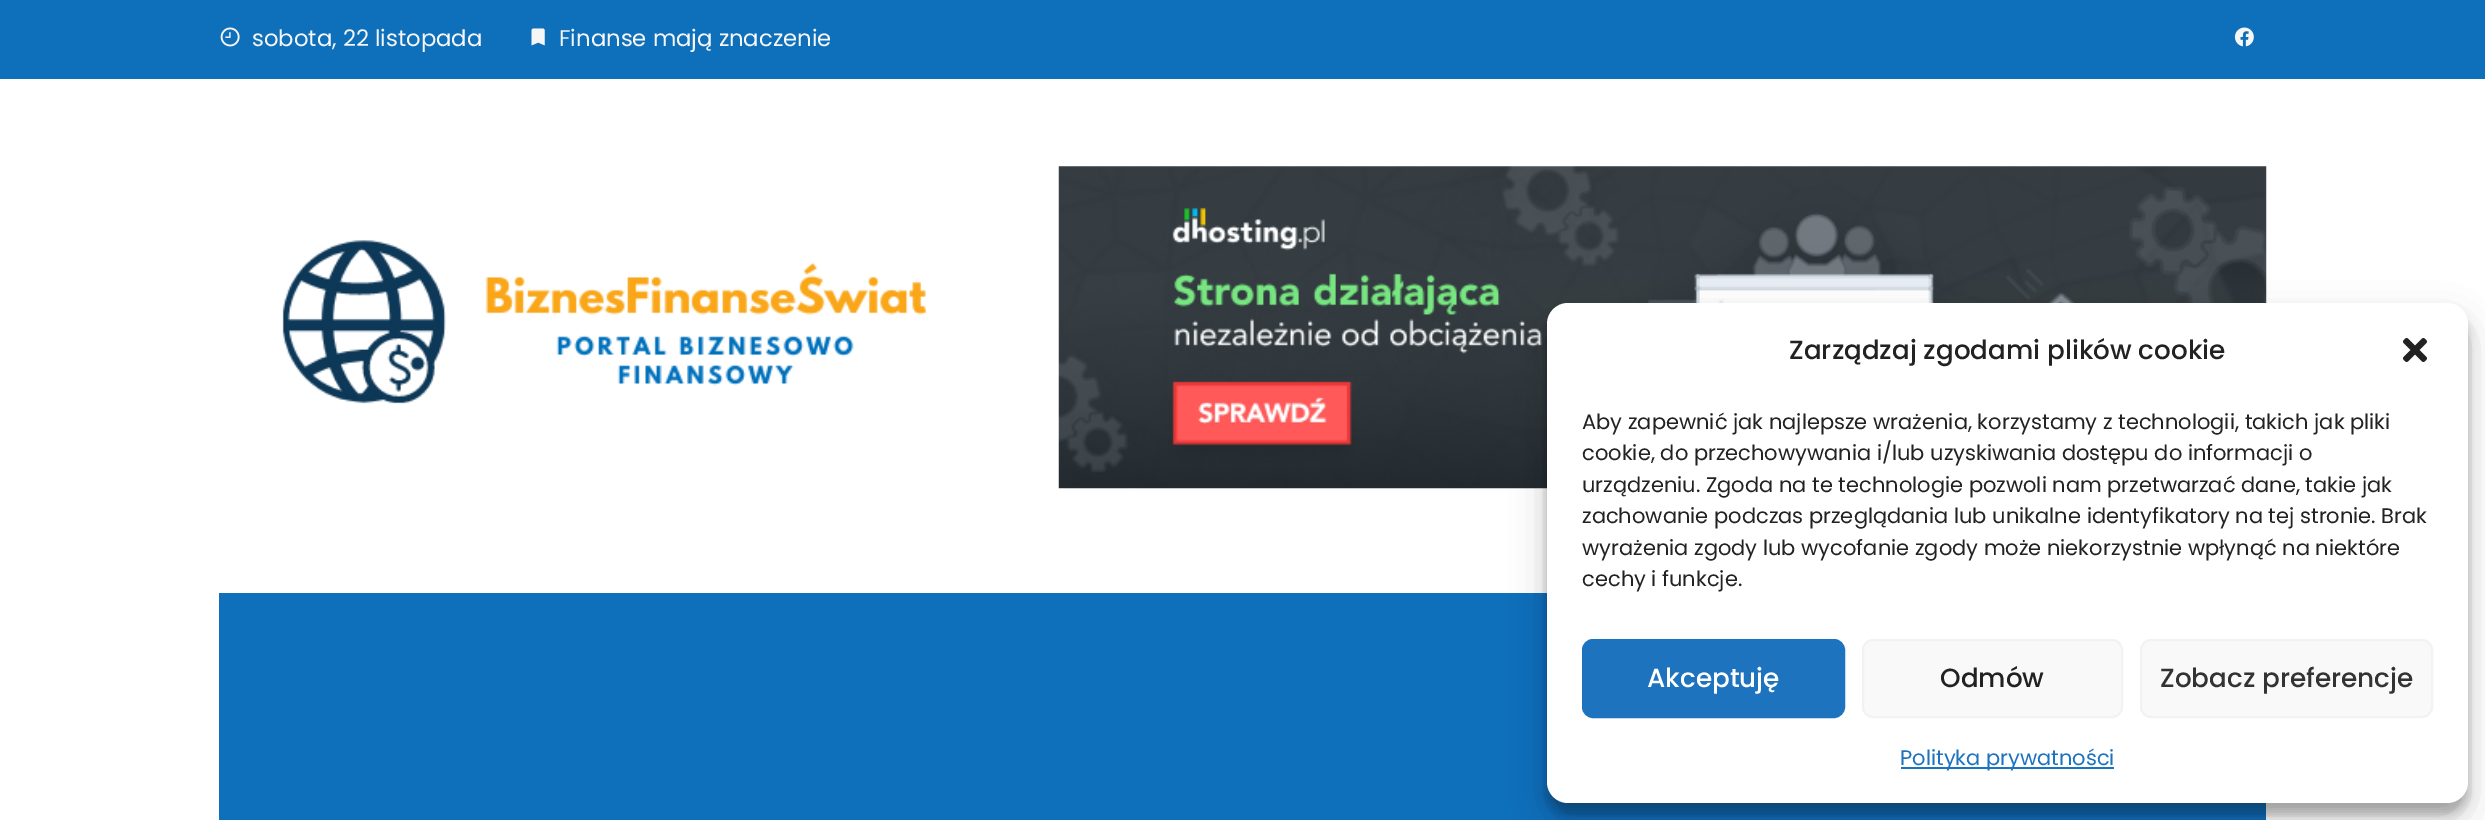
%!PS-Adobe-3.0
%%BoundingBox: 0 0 2485 820
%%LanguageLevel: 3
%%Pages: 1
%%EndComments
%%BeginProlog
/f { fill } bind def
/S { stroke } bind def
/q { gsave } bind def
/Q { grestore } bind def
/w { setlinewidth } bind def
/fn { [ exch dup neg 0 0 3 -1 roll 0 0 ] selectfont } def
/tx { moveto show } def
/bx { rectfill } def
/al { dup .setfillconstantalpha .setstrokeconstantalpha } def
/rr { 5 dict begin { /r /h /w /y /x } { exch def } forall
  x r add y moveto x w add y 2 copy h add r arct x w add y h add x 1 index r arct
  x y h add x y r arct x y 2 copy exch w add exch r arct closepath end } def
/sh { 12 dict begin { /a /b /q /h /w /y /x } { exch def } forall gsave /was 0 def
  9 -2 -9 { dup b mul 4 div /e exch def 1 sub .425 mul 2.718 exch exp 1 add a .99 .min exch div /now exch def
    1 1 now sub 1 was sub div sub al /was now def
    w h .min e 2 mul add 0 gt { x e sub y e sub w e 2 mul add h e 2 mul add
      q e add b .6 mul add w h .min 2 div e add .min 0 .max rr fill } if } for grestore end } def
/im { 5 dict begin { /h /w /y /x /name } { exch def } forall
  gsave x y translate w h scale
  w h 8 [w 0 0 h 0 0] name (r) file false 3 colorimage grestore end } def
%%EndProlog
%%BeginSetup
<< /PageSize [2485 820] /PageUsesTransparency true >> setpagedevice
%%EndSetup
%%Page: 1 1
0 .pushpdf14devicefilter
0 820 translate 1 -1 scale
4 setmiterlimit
1 setgray
0 0 2485 820 bx
0.055 0.435 0.729 setrgbcolor
0 0 2485 79 bx
(image0.raw) 220 27 20 20 im
/Poppins-Regular 22.75 fn
0.965 setgray
(sobota, 22 listopada) 252 46 tx
(image1.raw) 531 28 14 18 im
(Finanse mają znaczenie) 559 46 tx
(image2.raw) 2234 27 20 20 im
(image3.raw) 282 240 646 164 im
(image4.raw) 1058 166 1209 323 im
0.055 0.435 0.729 setrgbcolor
219 593 2047 227 bx
0 setgray
1547 313 921 501 21 5 0.23 sh
1547 320 921 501 21 17.5 0.19 sh
1 setgray
1547 303 921 500 21 rr f
/Poppins-Medium 26.25 fn
0.133 setgray
(Zarządzaj zgodami plików cookie) 1789 359 tx
(image5.raw) 2403 338 24 24 im
/Poppins-Regular 21 fn
(Aby zapewnić jak najlepsze wrażenia, korzystamy z technologii, takich jak pliki) 1582 429 tx
(cookie, do przechowywania i/lub uzyskiwania dostępu do informacji o) 1582 460 tx
(urządzeniu. Zgoda na te technologie pozwoli nam przetwarzać dane, takie jak) 1582 492 tx
(zachowanie podczas przeglądania lub unikalne identyfikatory na tej stronie. Brak) 1582 523 tx
(wyrażenia zgody lub wycofanie zgody może niekorzystnie wpłynąć na niektóre) 1582 555 tx
(cechy i funkcje.) 1582 586 tx
0.118 0.451 0.745 setrgbcolor
1583 640 261 77 10 rr q f Q
2 w
S
/Poppins-Medium 26.25 fn
1 setgray
(Akceptuję) 1647 687 tx
0.976 setgray
1863 640 259 77 10 rr q f Q
0.949 setgray
S
0.133 setgray
(Odmów) 1940 687 tx
0.976 setgray
2141 640 291 77 10 rr q f Q
0.949 setgray
S
0.2 setgray
(Zobacz preferencje) 2160 687 tx
0.118 0.451 0.745 setrgbcolor
1901 767 213 2 bx
/Poppins-Regular 21 fn
(Polityka prywatności) 1900 765 tx
.poppdf14devicefilter showpage
%%EOF
